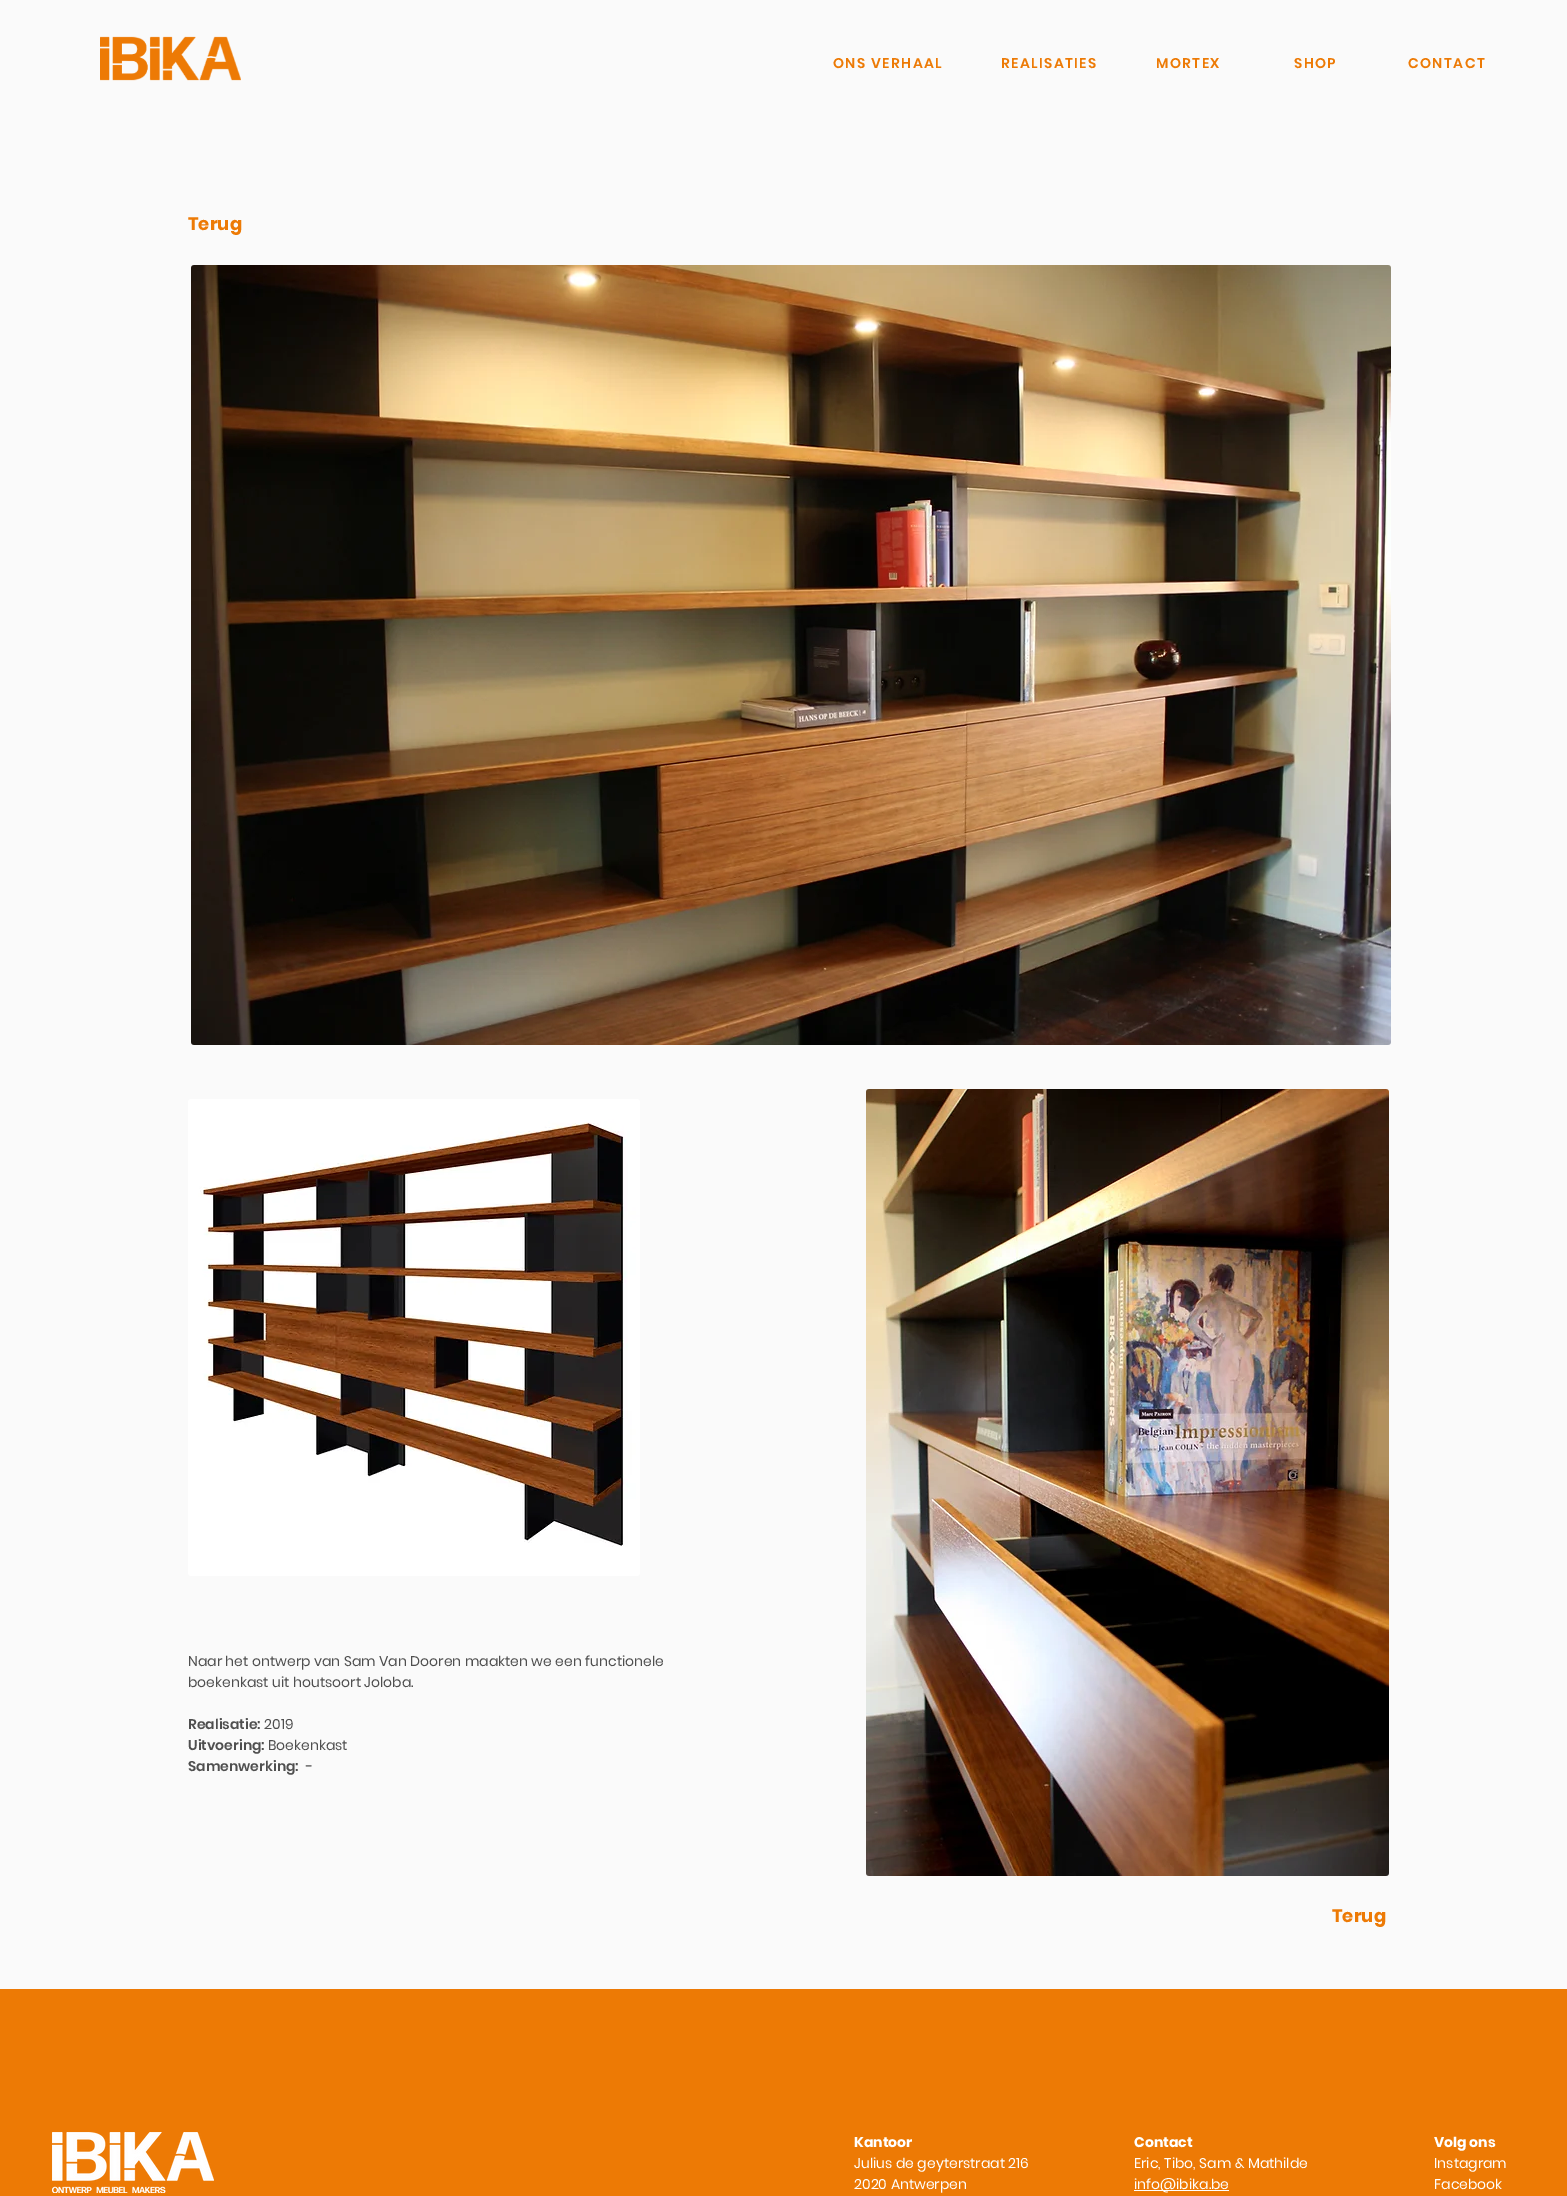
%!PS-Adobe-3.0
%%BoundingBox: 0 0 1567 2196
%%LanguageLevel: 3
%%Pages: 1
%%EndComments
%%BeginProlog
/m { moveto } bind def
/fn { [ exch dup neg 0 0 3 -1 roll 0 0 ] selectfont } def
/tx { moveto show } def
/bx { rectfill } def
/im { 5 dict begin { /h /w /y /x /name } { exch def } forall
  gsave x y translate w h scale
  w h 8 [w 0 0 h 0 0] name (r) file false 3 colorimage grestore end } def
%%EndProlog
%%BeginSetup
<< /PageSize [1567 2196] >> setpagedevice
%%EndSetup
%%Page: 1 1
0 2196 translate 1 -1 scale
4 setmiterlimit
0.98 setgray
0 0 1567 2196 bx
(image0.raw) 100 36 141 45 im
/Poppins-SemiBold 14 fn
0.929 0.478 0.02 setrgbcolor
833 68 m 1.4 0 (ONS VERHAAL) ashow
1001 68 m 1.4 0 (REALISATIES) ashow
1156 68 m 1.4 0 (MORTEX) ashow
1294 68 m 1.4 0 (SHOP) ashow
1408 68 m 1.4 0 (CONTACT) ashow
/Poppins-Bold 18 fn
(Terug) 188 230 tx
(image1.raw) 191 265 1200 780 im
(image2.raw) 188 1099 452 477 im
(image3.raw) 866 1089 523 787 im
/Poppins-Regular 14 fn
0.31 setgray
(Naar het ontwerp van Sam Van Dooren maakten we een functionele) 188 1666 tx
(boekenkast uit houtsoort Joloba.) 188 1687 tx
/Poppins-SemiBold 14 fn
(Realisatie:) 188 1729 tx
/Poppins-Regular 14 fn
(2019) 264 1729 tx
/Poppins-SemiBold 14 fn
(Uitvoering:) 188 1750 tx
/Poppins-Regular 14 fn
(Boekenkast) 268 1750 tx
/Poppins-SemiBold 14 fn
(Samenwerking:) 188 1771 tx
/Poppins-Regular 14 fn
(-) 306 1771 tx
/Poppins-Bold 18 fn
0.929 0.478 0.02 setrgbcolor
(Terug) 1332 1922 tx
0 1989 1567 207 bx
(image4.raw) 52 2132 162 61 im
/Poppins-Bold 14 fn
1 setgray
(Kantoor) 854 2147 tx
/Poppins-Regular 14 fn
(Julius de geyterstraat 216) 854 2168 tx
(2020 Antwerpen) 854 2189 tx
/Poppins-Bold 14 fn
(Contact) 1134 2147 tx
/Poppins-Regular 14 fn
(Eric, Tibo, Sam & Mathilde) 1134 2168 tx
1134 2190 95 1 bx
(info@ibika.be) 1134 2189 tx
/Poppins-Bold 14 fn
(Volg ons) 1434 2147 tx
/Poppins-Regular 14 fn
(Instagram) 1434 2168 tx
(Facebook) 1434 2189 tx
showpage
%%EOF
